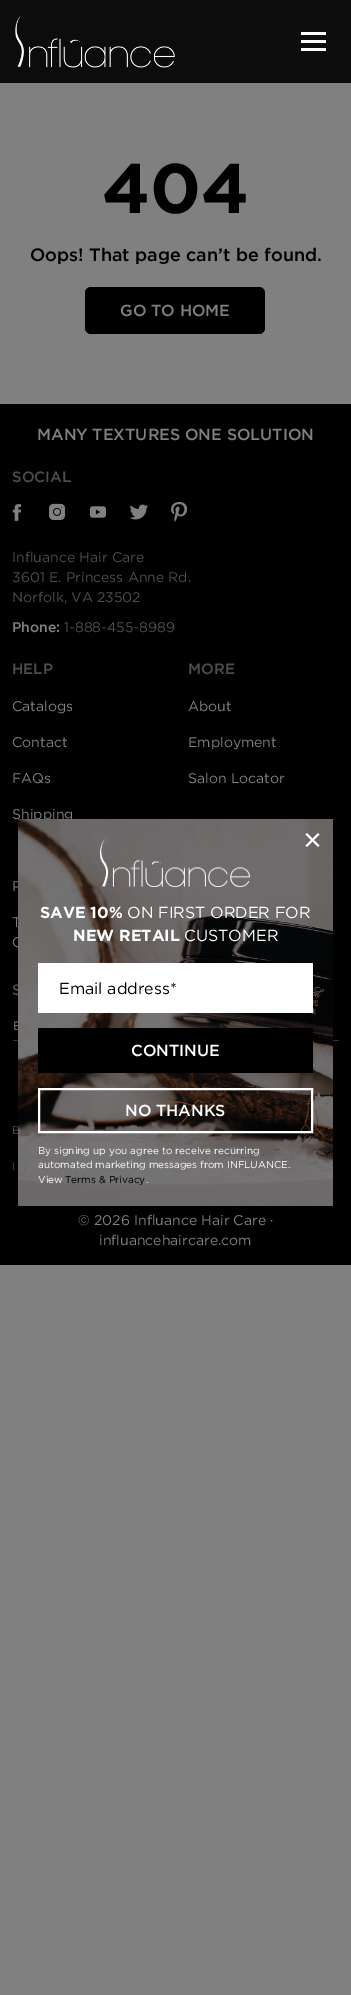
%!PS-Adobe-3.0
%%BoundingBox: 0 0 351 1995
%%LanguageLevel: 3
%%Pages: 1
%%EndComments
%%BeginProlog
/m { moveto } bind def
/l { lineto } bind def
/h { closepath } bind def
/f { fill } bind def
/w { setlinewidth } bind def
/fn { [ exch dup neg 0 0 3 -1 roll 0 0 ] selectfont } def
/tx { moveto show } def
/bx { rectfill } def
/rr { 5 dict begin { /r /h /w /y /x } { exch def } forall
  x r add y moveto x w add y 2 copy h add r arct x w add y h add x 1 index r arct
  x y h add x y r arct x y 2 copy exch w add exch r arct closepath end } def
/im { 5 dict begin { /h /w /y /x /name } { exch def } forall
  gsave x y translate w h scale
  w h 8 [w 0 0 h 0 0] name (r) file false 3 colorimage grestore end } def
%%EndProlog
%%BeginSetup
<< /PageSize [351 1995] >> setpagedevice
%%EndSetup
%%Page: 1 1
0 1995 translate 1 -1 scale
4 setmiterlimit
0.502 setgray
0 0 351 1995 bx
0.047 setgray
0 0 351 83 bx
(image0.raw) 15 15 160 53 im
1 setgray
301 40 25 3 bx
301 32 25 3 bx
301 48 25 3 bx
/Gotham-Bold 70 fn
0 setgray
(404) 102 213 tx
/Gotham-Medium 18 fn
(Oops! That page can’t be found.) 30 261 tx
85 287 180 47 6 rr f
/Gotham-Medium 16 fn
0.502 setgray
(GO TO HOME) 120 316 tx
0 setgray
0 404 351 861 bx
0.502 setgray
(MANY TEXTURES ONE SOLUTION) 37 440 tx
/Gotham-Medium 15 fn
0.302 setgray
(SOCIAL) 12 482 tx
(image1.raw) 12 504 10 17 im
(image2.raw) 49 503 17 17 im
(image3.raw) 89 506 18 12 im
(image4.raw) 129 504 20 16 im
(image5.raw) 171 501 17 21 im
/Gotham-Regular 14 fn
(Influance Hair Care) 12 562 tx
(3601 E. Princess Anne Rd.) 12 582 tx
(Norfolk, VA 23502) 12 602 tx
/Gotham-Medium 14 fn
0.502 setgray
(Phone:) 12 632 tx
/Gotham-Regular 14 fn
0.302 setgray
(1-888-455-8989) 64 632 tx
/Gotham-Medium 15 fn
(HELP) 12 674 tx
/Gotham-Regular 14 fn
0.502 setgray
(Catalogs) 12 711 tx
(Contact) 12 747 tx
(FAQs) 12 783 tx
(Shipping) 12 819 tx
(P) 12 891 tx
(T) 12 927 tx
(C) 12 947 tx
/Gotham-Medium 15 fn
0.302 setgray
(MORE) 188 674 tx
/Gotham-Regular 14 fn
0.502 setgray
(About) 188 711 tx
(Employment) 188 747 tx
(Salon Locator) 188 783 tx
/Gotham-Medium 15 fn
0.302 setgray
(S) 12 995 tx
0.188 setgray
12 1040 327 1 bx
0 setgray
12 1040 1 1 bx
/Gotham-Regular 12 fn
0.502 setgray
(E) 13 1030 tx
/Gotham-Regular 11 fn
0.302 setgray
(B) 12 1134 tx
(I) 12 1170 tx
/Gotham-Regular 14 fn
0.502 setgray
(© 2026 Influance Hair Care ·) 78 1225 tx
(influancehaircare.com) 99 1245 tx
(image6.raw) 18 819 315 387 im
1 setgray
318 833 m 319.5 834.5 l 307 847 l 305.5 845.5 l h f
305.5 834.5 m 307 833 l 319.5 845.5 l 318 847 l h f
(image7.raw) 100 839 150 48 im
/Gotham-Bold 16 fn
(SAVE 10%) 40 918 tx
/Gotham-Regular 16 fn
(ON FIRST ORDER FOR) 127 918 tx
/Gotham-Bold 16 fn
(NEW RETAIL) 73 941 tx
/Gotham-Regular 16 fn
(CUSTOMER) 184 941 tx
38 963 275 50 bx
0 setgray
(Email address*) 59 994 tx
38 1028 275 45 bx
/Gotham-Medium 16 fn
1 setgray
(CONTINUE) 131 1056 tx
2 w
39 1089 273 43 rectstroke
(NO THANKS) 125 1116 tx
/Gotham-Regular 10 fn
(By signing up you agree to receive recurring) 38 1154 tx
(automated marketing messages from INFLUANCE.) 38 1168 tx
(View) 38 1183 tx
0 setgray
(Terms & Privacy) 65 1183 tx
1 setgray
(.) 146 1183 tx
showpage
%%EOF
